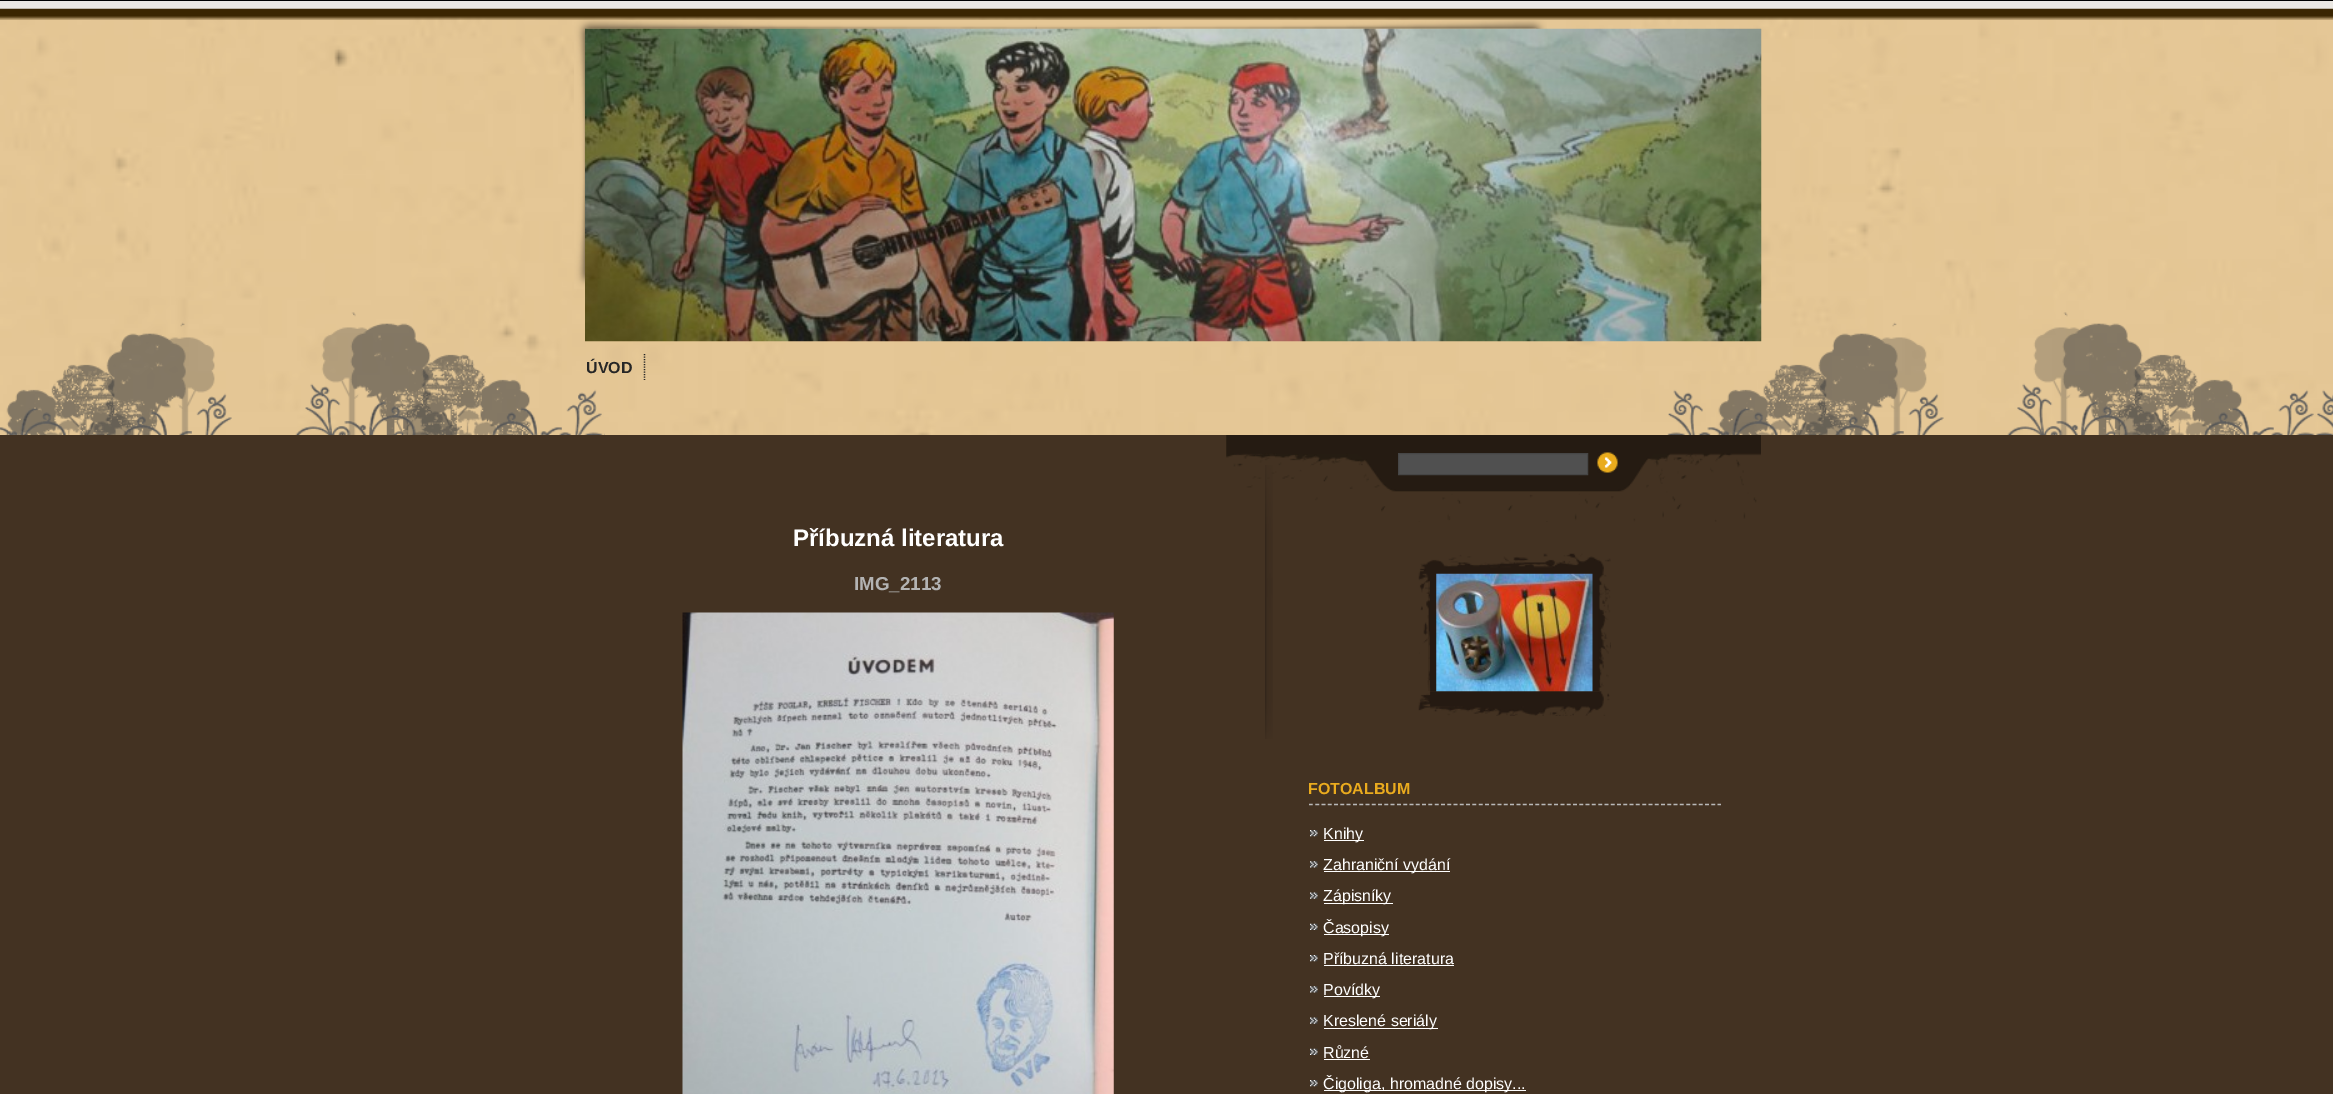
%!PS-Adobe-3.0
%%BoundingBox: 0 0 2333 1094
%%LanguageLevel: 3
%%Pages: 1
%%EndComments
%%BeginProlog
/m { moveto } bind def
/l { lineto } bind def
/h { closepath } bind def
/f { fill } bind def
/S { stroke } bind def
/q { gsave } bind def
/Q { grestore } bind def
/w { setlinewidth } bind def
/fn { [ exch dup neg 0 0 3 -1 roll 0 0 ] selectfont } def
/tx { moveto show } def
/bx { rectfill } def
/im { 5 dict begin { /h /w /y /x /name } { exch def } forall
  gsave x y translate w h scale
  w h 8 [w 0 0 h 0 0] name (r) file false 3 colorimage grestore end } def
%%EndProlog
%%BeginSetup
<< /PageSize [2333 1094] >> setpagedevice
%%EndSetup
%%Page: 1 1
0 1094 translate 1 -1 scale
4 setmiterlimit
0.263 0.196 0.133 setrgbcolor
0 0 2333 1094 bx
0 setgray
0 0 2333 1 bx
0.922 0.91 0.89 setrgbcolor
0 1 2333 8 bx
(image0.raw) 0 8 2333 427 im
(image1.raw) 0 312 605 123 im
(image2.raw) 1667 312 666 123 im
(image3.raw) 1265 465 8 274 im
(image4.raw) 574 20 973 269 im
(image5.raw) 585 28 1177 314 im
0.145 setgray
1.2 w
[1.25 1.25] 0 setdash
644.5 354 m 644.5 380 l S
/LiberationSans-Bold 16 fn
0.149 setgray
(ÚVOD) 586 373 tx
/LiberationSans-Bold 24 fn
1 setgray
(Příbuzná literatura) 793 546 tx
/LiberationSans-Bold 18.75 fn
0.702 setgray
(IMG_2113) 854 590 tx
(image6.raw) 682 612 432 482 im
(image7.raw) 1418 553 193 135 im
(image8.raw) 1418 691 192 25 im
(image9.raw) 1428 577 172 114 im
(image10.raw) 1436 573 157 119 im
(image11.raw) 1226 435 535 87 im
0.314 setgray
1398.5 453.5 m 1587.5 453.5 l 1587.5 474.5 l 1398.5 474.5 l h q f Q
0.275 setgray
1 w
[] 0 setdash
S
(image12.raw) 1597 452 21 21 im
0.722 setgray
1.2 w
[3.75 2.54] 0 setdash
1309 804.5 m 1721 804.5 l S
/LiberationSans-Bold 16 fn
0.918 0.671 0.118 setrgbcolor
(FOTOALBUM) 1308 794 tx
(image13.raw) 1310 830 8 7 im
1 setgray
1324 840 40 1 bx
/LiberationSans-Regular 16 fn
(Knihy) 1323 839 tx
(image14.raw) 1310 861 8 7 im
1324 871 126 1 bx
(Zahraniční vydání) 1323 870 tx
(image15.raw) 1310 892 8 7 im
1324 903 69 1 bx
(Zápisníky) 1323 901 tx
(image16.raw) 1310 923 8 7 im
1324 934 65 1 bx
(Časopisy) 1323 933 tx
(image13.raw) 1310 955 8 7 im
(Příbuzná literatura) 1323 964 tx
1324 965 130 1 bx
(image14.raw) 1310 986 8 7 im
1324 996 56 1 bx
(Povídky) 1323 995 tx
(image15.raw) 1310 1017 8 7 im
1324 1028 114 1 bx
(Kreslené seriály) 1323 1026 tx
(image16.raw) 1310 1048 8 7 im
(Různé) 1323 1058 tx
1324 1059 46 1 bx
(image13.raw) 1310 1080 8 7 im
1324 1090 202 1 bx
(Čigoliga, hromadné dopisy...) 1323 1089 tx
showpage
%%EOF
